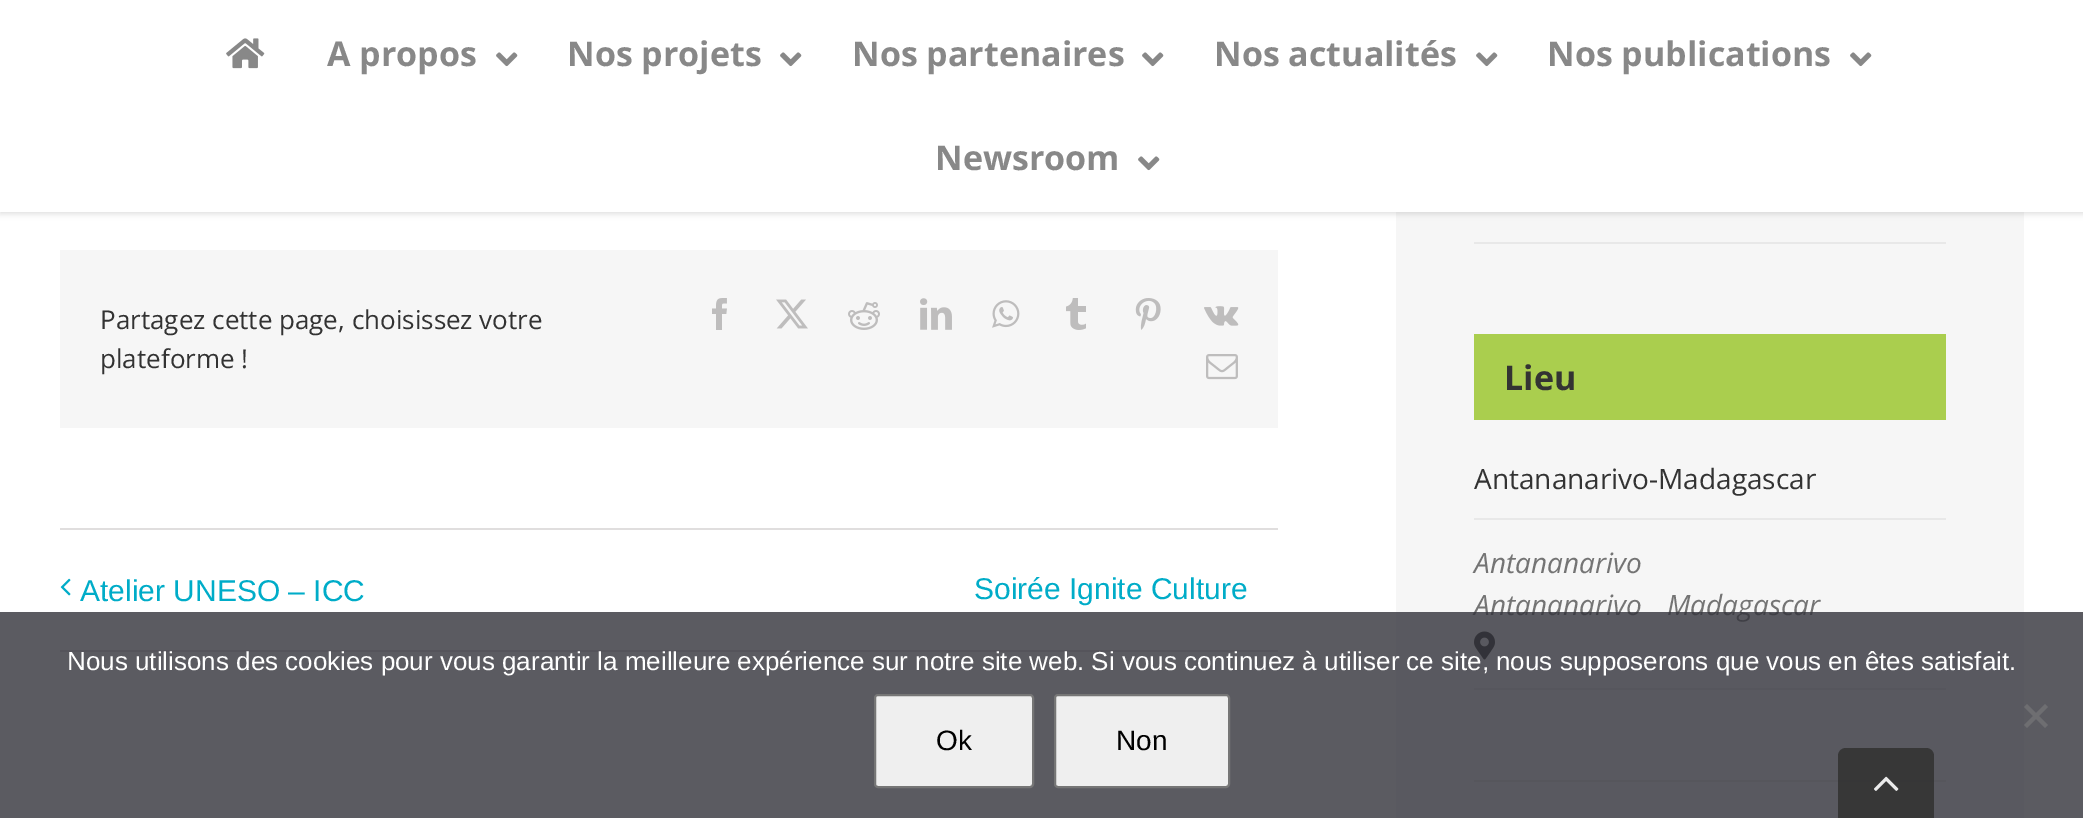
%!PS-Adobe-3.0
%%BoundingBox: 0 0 2083 818
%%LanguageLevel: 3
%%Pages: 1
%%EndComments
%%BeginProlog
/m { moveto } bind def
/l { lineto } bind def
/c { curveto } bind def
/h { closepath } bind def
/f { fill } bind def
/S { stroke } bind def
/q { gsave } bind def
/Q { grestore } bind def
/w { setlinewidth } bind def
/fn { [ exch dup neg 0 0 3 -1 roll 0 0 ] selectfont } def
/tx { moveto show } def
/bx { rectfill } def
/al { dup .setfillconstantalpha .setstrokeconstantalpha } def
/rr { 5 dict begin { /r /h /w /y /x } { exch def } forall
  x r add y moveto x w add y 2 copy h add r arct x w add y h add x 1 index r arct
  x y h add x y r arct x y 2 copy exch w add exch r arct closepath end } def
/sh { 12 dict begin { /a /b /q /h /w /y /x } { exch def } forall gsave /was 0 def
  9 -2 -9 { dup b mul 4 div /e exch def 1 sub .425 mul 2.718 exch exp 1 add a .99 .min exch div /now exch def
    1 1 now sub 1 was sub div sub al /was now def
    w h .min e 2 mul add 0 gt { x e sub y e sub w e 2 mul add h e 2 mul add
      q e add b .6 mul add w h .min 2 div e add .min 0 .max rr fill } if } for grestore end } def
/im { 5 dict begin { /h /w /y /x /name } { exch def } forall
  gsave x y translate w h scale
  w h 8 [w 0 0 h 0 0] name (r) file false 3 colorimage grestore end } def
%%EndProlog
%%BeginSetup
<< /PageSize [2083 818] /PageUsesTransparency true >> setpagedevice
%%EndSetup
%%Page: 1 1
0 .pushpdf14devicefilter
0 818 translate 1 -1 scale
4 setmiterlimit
1 setgray
0 0 2083 818 bx
0.965 setgray
1396 212 628 606 bx
0 setgray
0 2 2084 212 0 3 0.12 sh
1 setgray
0 0 2083 212 bx
(image0.raw) 226 38 39 31 im
/OpenSans-Bold 34 fn
0.533 setgray
(A propos) 327 66 tx
(image1.raw) 496 52 22 15 im
(Nos projets) 567 66 tx
(image1.raw) 780 52 22 15 im
(Nos partenaires) 852 66 tx
(image1.raw) 1142 52 22 15 im
(Nos actualités) 1214 66 tx
(image1.raw) 1476 52 22 15 im
(Nos publications) 1547 66 tx
(image1.raw) 1850 52 22 15 im
(Newsroom) 935 170 tx
(image1.raw) 1138 156 22 15 im
0.965 setgray
60 250 1218 178 bx
/OpenSans-Regular 26 fn
0.2 setgray
(Partagez cette page, choisissez votre) 100 329 tx
(plateforme !) 100 368 tx
(image2.raw) 712 298 15 32 im
(image3.raw) 776 299 32 30 im
(image4.raw) 848 302 32 28 im
(image5.raw) 920 298 32 32 im
(image6.raw) 992 300 28 28 im
(image7.raw) 1066 298 20 32 im
(image8.raw) 1135 298 26 32 im
(image9.raw) 1204 306 35 20 im
(image10.raw) 1206 354 32 26 im
0.878 0.871 0.871 setrgbcolor
60 528 1218 2 bx
60 650 1218 2 bx
(image11.raw) 60 578 11 18 im
/LiberationSans-Regular 30 fn
0 0.675 0.784 setrgbcolor
(Atelier UNESO – ICC) 80 601 tx
(Soirée Ignite Culture) 974 599 tx
0.91 setgray
1474 242 472 2 bx
0.667 0.808 0.306 setrgbcolor
1474 334 472 86 bx
/OpenSans-Bold 34 fn
0.2 setgray
(Lieu) 1504 390 tx
0.91 setgray
1474 518 472 2 bx
/OpenSans-Regular 28 fn
0.2 setgray
(Antananarivo-Madagascar) 1474 489 tx
0.91 setgray
1474 688 472 2 bx
/OpenSans-Italic 28 fn
0.455 setgray
(Antananarivo) 1474 573 tx
(Antananarivo) 1474 615 tx
(Madagascar) 1667 615 tx
(image12.raw) 1474 631 21 29 im
0.894 setgray
1474 780 472 2 bx
0.8 al
0.196 0.196 0.227 setrgbcolor
0 612 2083 206 bx
/LiberationSans-Regular 26 fn
1 al
1 setgray
(Nous utilisons des cookies pour vous garantir la meilleure expérience sur notre site web. Si vous continuez à utiliser ce site, nous supposerons que vous en êtes satisfait.) 67 670 tx
0.431 0.431 0.443 setrgbcolor
2045 704 m 2048 707 l 2027 728 l 2024 725 l h f
2024 707 m 2027 704 l 2048 725 l 2045 728 l h f
0.937 setgray
875 695 158 92 3 rr q f Q
0.463 setgray
2 w
S
/LiberationSans-Regular 28 fn
0 setgray
(Ok) 936 750 tx
0.937 setgray
1055 695 174 92 3 rr q f Q
0.463 setgray
S
0 setgray
(Non) 1116 750 tx
0.9 al
0.2 setgray
1846 748 m 1926 748 l 1930.5 748 1934 751.5 1934 756 c 1934 818 l 1838 818 l 1838 756 l 1838 751.5 1841.5 748 1846 748 c h f
1 al
(image13.raw) 1874 776 25 15 im
.poppdf14devicefilter showpage
%%EOF
